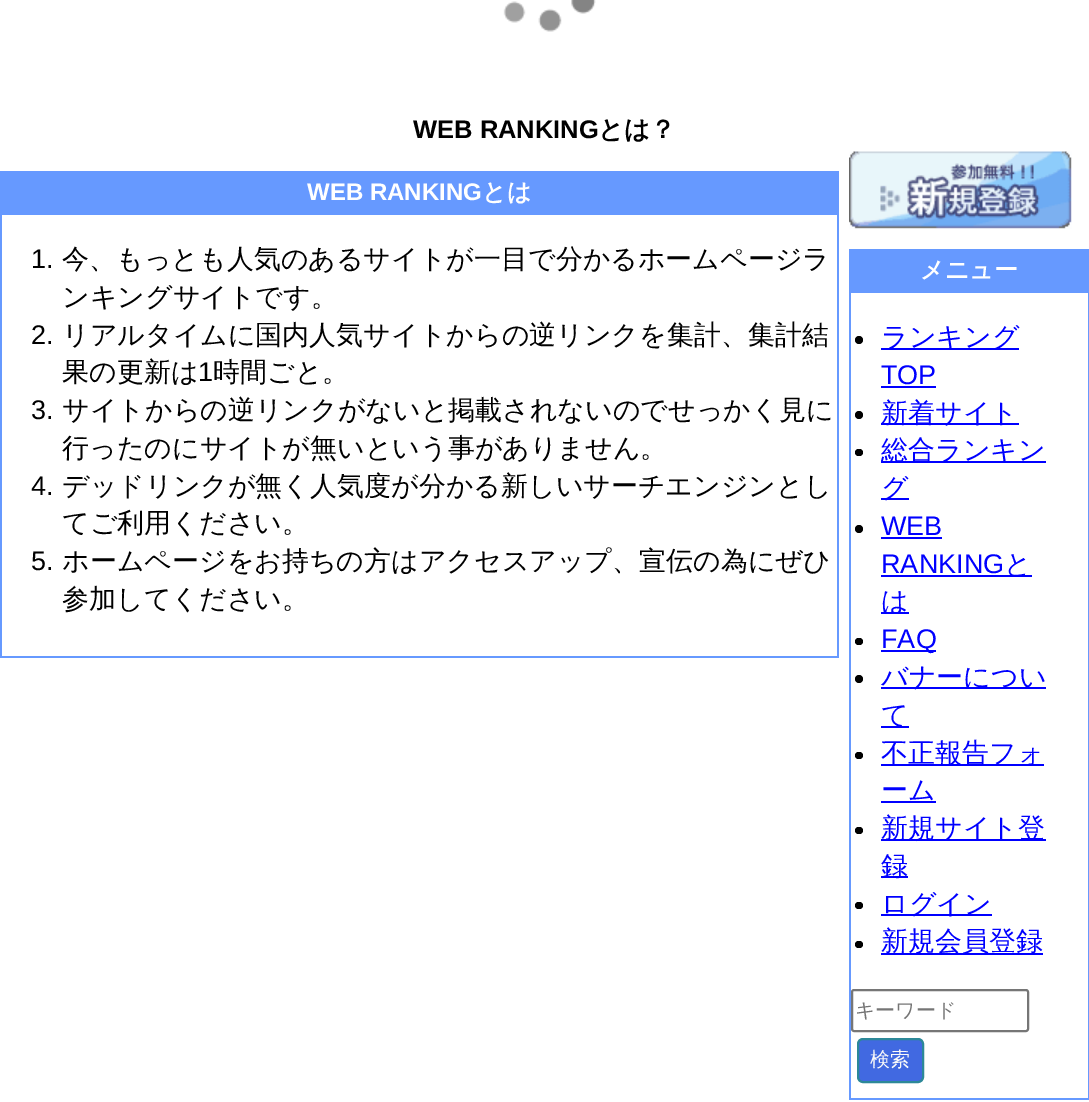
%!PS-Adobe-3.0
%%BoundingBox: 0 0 1089 1102
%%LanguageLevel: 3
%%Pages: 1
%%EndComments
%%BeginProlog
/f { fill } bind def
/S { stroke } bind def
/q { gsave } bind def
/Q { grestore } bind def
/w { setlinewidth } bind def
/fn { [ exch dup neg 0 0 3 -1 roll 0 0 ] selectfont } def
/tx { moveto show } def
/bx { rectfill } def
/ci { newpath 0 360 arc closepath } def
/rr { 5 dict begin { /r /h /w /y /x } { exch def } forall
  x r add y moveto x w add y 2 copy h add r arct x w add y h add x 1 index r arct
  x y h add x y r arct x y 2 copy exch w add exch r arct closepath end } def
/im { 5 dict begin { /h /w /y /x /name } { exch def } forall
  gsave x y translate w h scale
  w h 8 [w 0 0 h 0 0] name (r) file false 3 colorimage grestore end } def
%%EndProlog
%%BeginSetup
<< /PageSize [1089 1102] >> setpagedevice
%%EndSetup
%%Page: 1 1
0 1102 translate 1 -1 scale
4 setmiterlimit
1 setgray
0 0 1089 1102 bx
(image0.raw) 503 0 93 32 im
/LiberationSans-Bold 25.5 fn
0 setgray
(WEB RANKING) 413 138 tx
/WenQuanYiZenHei-Bold 25.5 fn
(とは？) 598 138 tx
0.4 0.6 1 setrgbcolor
837 171 2 486 bx
0 656 839 2 bx
0 171 2 486 bx
2 171 835 44 bx
/LiberationSans-Bold 24 fn
1 setgray
(WEB RANKING) 307 200 tx
/WenQuanYiZenHei-Bold 24 fn
(とは) 482 200 tx
/LiberationSans-Regular 27 fn
0 setgray
(1.) 31 268 tx
/WenQuanYiZenHei-Medium 27 fn
(今、もっとも人気のあるサイトが一目で分かるホームページラ) 62 268 tx
(ンキングサイトです。) 62 306 tx
/LiberationSans-Regular 27 fn
(2.) 31 344 tx
/WenQuanYiZenHei-Medium 27 fn
(リアルタイムに国内人気サイトからの逆リンクを集計、集計結) 62 344 tx
(果の更新は) 62 381 tx
/LiberationSans-Regular 27 fn
(1) 198 381 tx
/WenQuanYiZenHei-Medium 27 fn
(時間ごと。) 213 381 tx
/LiberationSans-Regular 27 fn
(3.) 31 419 tx
/WenQuanYiZenHei-Medium 27 fn
(サイトからの逆リンクがないと掲載されないのでせっかく見に) 62 419 tx
(行ったのにサイトが無いという事がありません。) 62 457 tx
/LiberationSans-Regular 27 fn
(4.) 31 495 tx
/WenQuanYiZenHei-Medium 27 fn
(デッドリンクが無く人気度が分かる新しいサーチエンジンとし) 62 495 tx
(てご利用ください。) 62 532 tx
/LiberationSans-Regular 27 fn
(5.) 31 570 tx
/WenQuanYiZenHei-Medium 27 fn
(ホームページをお持ちの方はアクセスアップ、宣伝の為にぜひ) 62 570 tx
(参加してください。) 62 608 tx
(image1.raw) 849 151 223 78 im
0.4 0.6 1 setrgbcolor
1088 249 1 851 bx
849 1098 240 2 bx
849 249 2 851 bx
851 249 237 44 bx
/WenQuanYiZenHei-Bold 24 fn
1 setgray
(メニュー) 920 278 tx
0 setgray
859 340 4 ci f
0 0 1 setrgbcolor
881 348 138 2 bx
/WenQuanYiZenHei-Medium 27 fn
(ランキング) 881 346 tx
/LiberationSans-Regular 27 fn
(TOP) 881 384 tx
881 386 55 2 bx
0 setgray
859 415 4 ci f
0 0 1 setrgbcolor
881 423 138 2 bx
/WenQuanYiZenHei-Medium 27 fn
(新着サイト) 881 422 tx
0 setgray
855 449 8 7 3.5 rr f
0 0 1 setrgbcolor
881 461 165 2 bx
(総合ランキン) 881 459 tx
881 498 28 2 bx
(グ) 881 497 tx
0 setgray
859 529 4 ci f
/LiberationSans-Regular 27 fn
0 0 1 setrgbcolor
(WEB) 881 535 tx
881 537 61 2 bx
(RANKING) 881 573 tx
881 575 151 2 bx
/WenQuanYiZenHei-Medium 27 fn
(と) 1004 573 tx
881 612 28 2 bx
(は) 881 610 tx
0 setgray
855 638 8 7 3.5 rr f
0 0 1 setrgbcolor
881 650 55 2 bx
/LiberationSans-Regular 27 fn
(FAQ) 881 648 tx
0 setgray
859 679 4 ci f
0 0 1 setrgbcolor
881 687 165 2 bx
/WenQuanYiZenHei-Medium 27 fn
(バナーについ) 881 686 tx
881 726 28 2 bx
(て) 881 724 tx
0 setgray
855 752 8 7 3.5 rr f
0 0 1 setrgbcolor
881 764 163 2 bx
(不正報告フォ) 881 762 tx
(ーム) 881 799 tx
881 801 55 2 bx
0 setgray
855 827 8 7 3.5 rr f
0 0 1 setrgbcolor
881 839 165 2 bx
(新規サイト登) 881 837 tx
881 876 27 2 bx
(録) 881 875 tx
0 setgray
855 902 8 7 3.5 rr f
0 0 1 setrgbcolor
881 914 111 2 bx
(ログイン) 881 913 tx
0 setgray
855 941 8 7 3.5 rr f
0 0 1 setrgbcolor
881 953 162 2 bx
(新規会員登録) 881 950 tx
0.463 setgray
2 w
852 990 176 41 2 rr S
/WenQuanYiZenHei-Medium 20 fn
0.459 setgray
(キーワード) 855 1017 tx
0.255 0.412 0.882 setrgbcolor
858 1039 65 43 5 rr q f Q
0.173 0.533 0.596 setrgbcolor
S
0.976 setgray
(検索) 870 1066 tx
showpage
%%EOF
